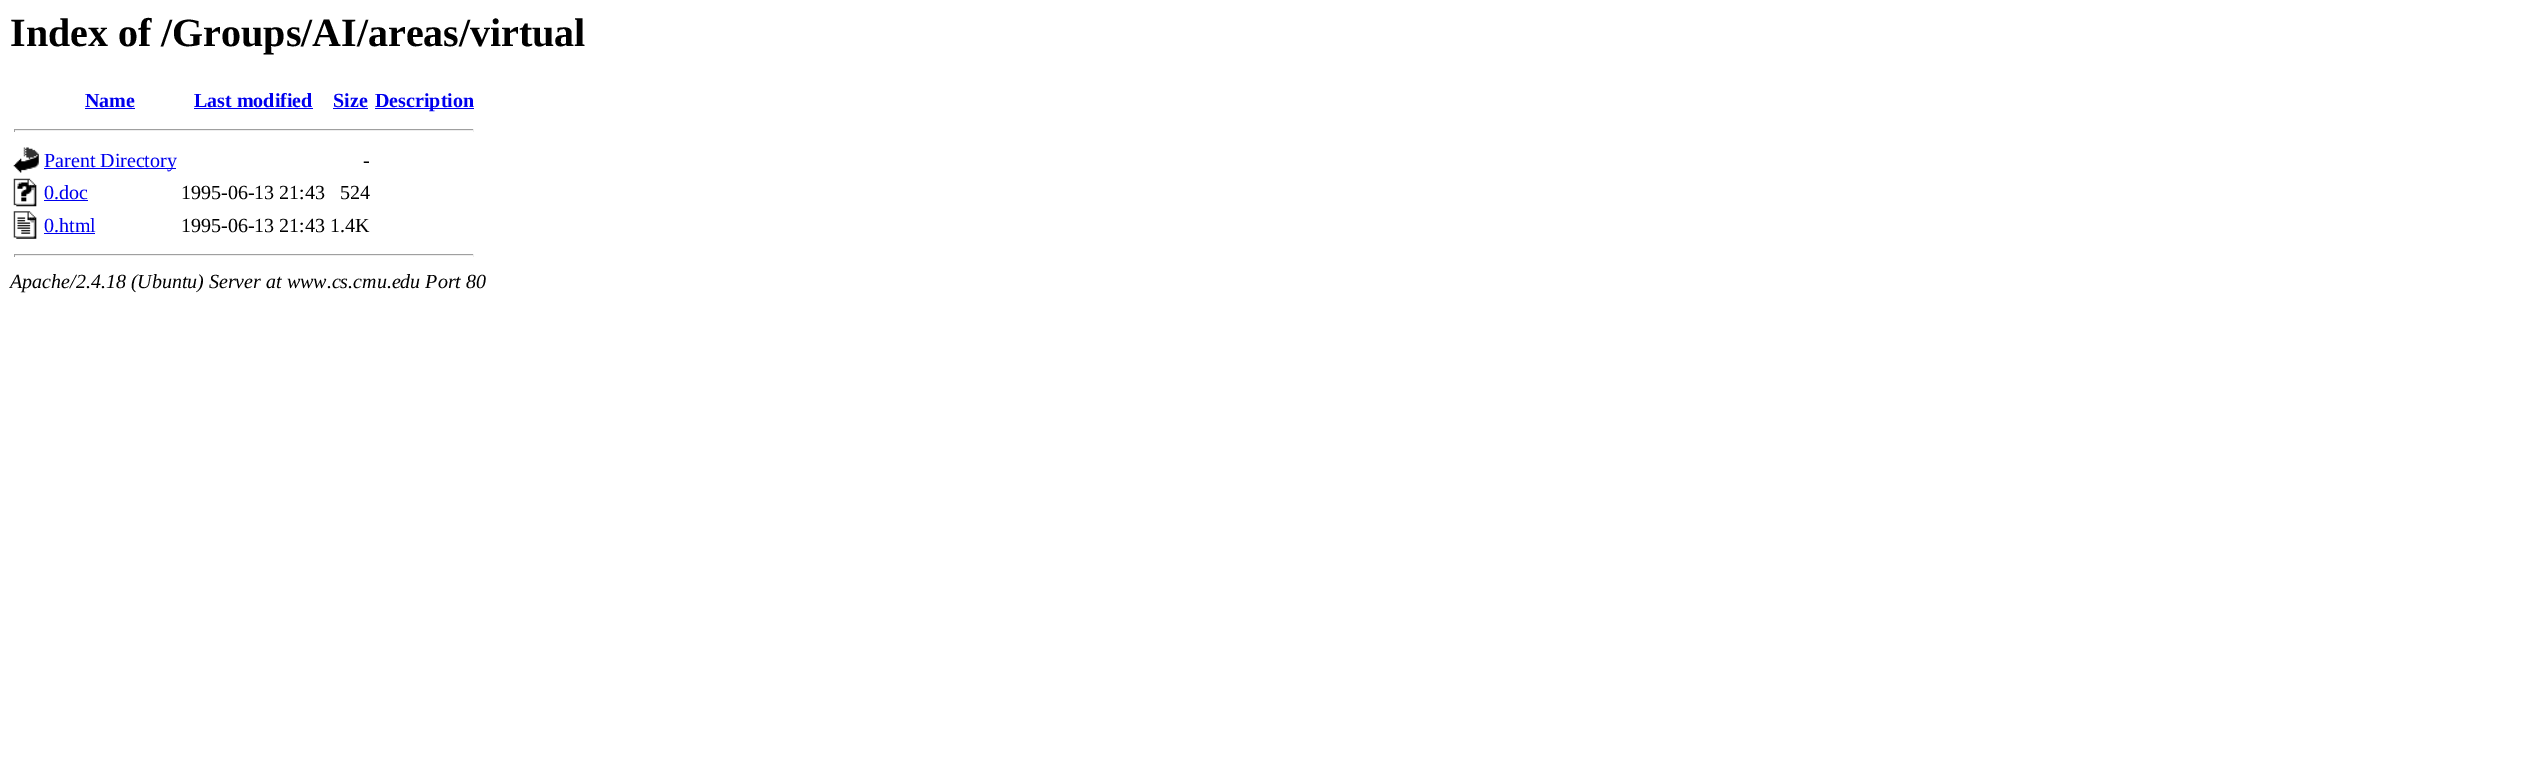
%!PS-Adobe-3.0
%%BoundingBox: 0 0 2542 782
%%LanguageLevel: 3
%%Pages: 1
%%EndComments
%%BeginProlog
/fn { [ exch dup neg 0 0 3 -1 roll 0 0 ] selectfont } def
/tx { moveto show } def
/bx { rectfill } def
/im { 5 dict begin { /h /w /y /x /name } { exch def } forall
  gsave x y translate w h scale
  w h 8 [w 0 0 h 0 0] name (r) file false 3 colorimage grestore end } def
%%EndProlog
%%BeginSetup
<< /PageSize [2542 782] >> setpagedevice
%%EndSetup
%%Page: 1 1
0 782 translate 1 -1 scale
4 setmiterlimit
1 setgray
0 0 2542 782 bx
/LiberationSerif-Bold 40 fn
0 setgray
(Index of /Groups/AI/areas/virtual) 10 46 tx
/LiberationSerif-Bold 20 fn
0 0 0.933 setrgbcolor
(Name) 85 107 tx
85 108 50 1 bx
(Last modified) 194 107 tx
194 108 119 1 bx
(Size) 333 107 tx
333 108 35 1 bx
375 108 99 1 bx
(Description) 375 107 tx
0.624 setgray
14 129 460 1 bx
0.933 setgray
473 129 1 3 bx
14 130 460 1 bx
0.624 setgray
14 129 1 3 bx
(image0.raw) 13 147 26 26 im
0 0 0.933 setrgbcolor
44 168 132 1 bx
/LiberationSerif-Regular 20 fn
(Parent Directory) 44 167 tx
0 setgray
(-) 363 167 tx
(image1.raw) 13 178 24 29 im
0 0 0.933 setrgbcolor
(0.doc) 44 199 tx
44 200 44 1 bx
0 setgray
(1995-06-13 21:43) 181 199 tx
(524) 340 199 tx
(image2.raw) 13 211 24 28 im
0 0 0.933 setrgbcolor
(0.html) 44 232 tx
44 233 51 1 bx
0 setgray
(1995-06-13 21:43 1.4K) 181 232 tx
0.624 setgray
14 254 460 1 bx
0.933 setgray
473 254 1 3 bx
14 255 460 1 bx
0.624 setgray
14 254 1 3 bx
/LiberationSerif-Italic 20 fn
0 setgray
(Apache/2.4.18 \(Ubuntu\) Server at www.cs.cmu.edu Port 80) 10 288 tx
showpage
%%EOF
